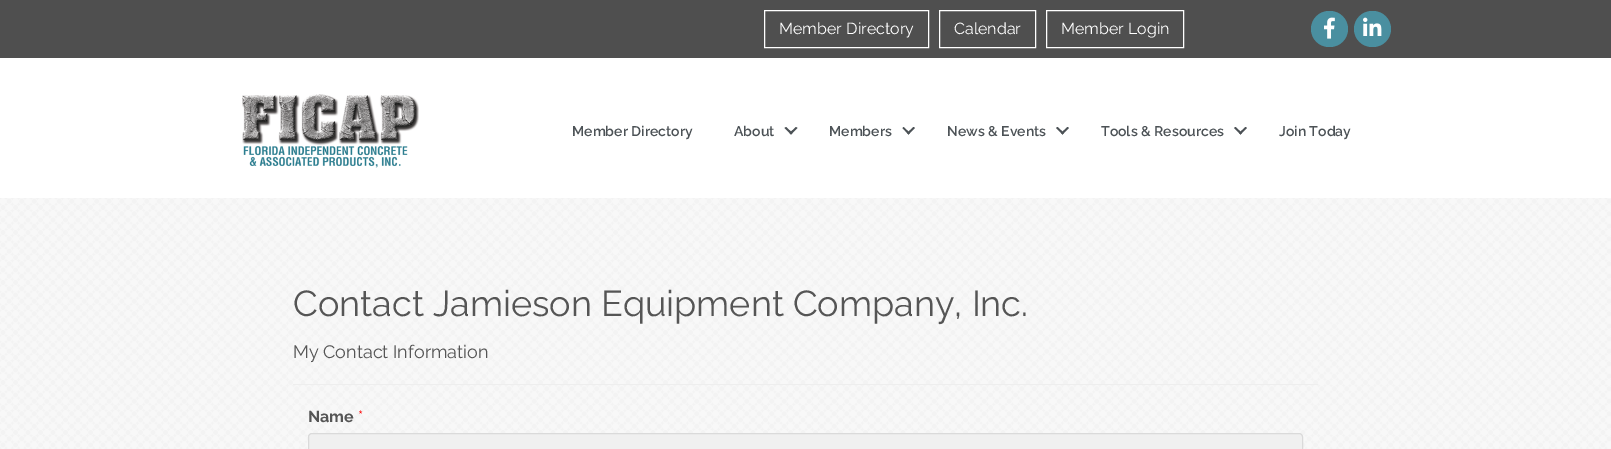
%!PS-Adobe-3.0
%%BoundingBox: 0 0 1611 449
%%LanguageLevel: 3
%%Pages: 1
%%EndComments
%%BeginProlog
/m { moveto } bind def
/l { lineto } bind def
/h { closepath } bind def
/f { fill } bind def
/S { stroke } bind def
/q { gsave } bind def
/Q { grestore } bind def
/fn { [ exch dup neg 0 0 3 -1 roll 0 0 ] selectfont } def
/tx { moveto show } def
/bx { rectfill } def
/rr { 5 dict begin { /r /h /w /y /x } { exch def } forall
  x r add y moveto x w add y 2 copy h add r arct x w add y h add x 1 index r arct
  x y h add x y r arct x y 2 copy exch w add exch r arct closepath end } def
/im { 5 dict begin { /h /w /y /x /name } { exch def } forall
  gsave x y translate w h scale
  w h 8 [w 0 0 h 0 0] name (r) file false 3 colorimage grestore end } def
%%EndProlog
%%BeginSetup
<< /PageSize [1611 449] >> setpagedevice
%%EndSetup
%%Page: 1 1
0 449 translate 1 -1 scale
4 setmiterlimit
0.31 setgray
0 0 1611 449 bx
1 setgray
764.5 10.5 164 37 rectstroke
/Raleway-Regular 16 fn
(Member Directory) 779 34 tx
939.5 10.5 96 37 rectstroke
(Calendar) 954 34 tx
1046.5 10.5 137 37 rectstroke
(Member Login) 1061 34 tx
0.29 0.561 0.627 setrgbcolor
1311 11 37 36 18 rr f
(image0.raw) 1324 17 11 22 im
1354 11 37 36 18 rr f
(image1.raw) 1363 17 19 19 im
1 setgray
0 58 1611 140 bx
(image2.raw) 242 94 177 74 im
/Raleway-SemiBold 14 fn
0.298 0.322 0.337 setrgbcolor
(Member Directory) 572 136 tx
(About) 734 136 tx
796 127 m 797.5 128 l 791 134.5 l 789.5 133 l h f
786 127 m 792.5 133 l 791 134.5 l 784.5 128 l h f
(Members) 829 136 tx
913.5 127 m 915 128 l 908.5 134.5 l 907 133 l h f
903.5 127 m 910 133 l 908.5 134.5 l 902.5 128 l h f
(News & Events) 947 136 tx
1067.5 127 m 1069 128 l 1062.5 134.5 l 1061 133 l h f
1057.5 127 m 1064 133 l 1062.5 134.5 l 1056 128 l h f
(Tools & Resources) 1101 136 tx
1245.5 127 m 1247 128 l 1240.5 134.5 l 1239 133 l h f
1235.5 127 m 1242 133 l 1240.5 134.5 l 1234 128 l h f
(Join Today) 1279 136 tx
0.953 setgray
0 198 1611 251 bx
(image3.raw) 0 198 1611 251 im
/Raleway-Regular 36 fn
0.333 setgray
(Contact Jamieson Equipment Company, Inc.) 293 316 tx
/Raleway-Regular 18 fn
(My Contact Information) 293 358 tx
0.933 setgray
293 384 1025 1 bx
/Raleway-Bold 16 fn
0.333 setgray
(Name) 308 422 tx
/Raleway-Regular 16 fn
1 0 0 setrgbcolor
(*) 358 422 tx
0.941 setgray
308.5 433.5 994 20 3.5 rr q f Q
0.855 setgray
S
showpage
%%EOF
